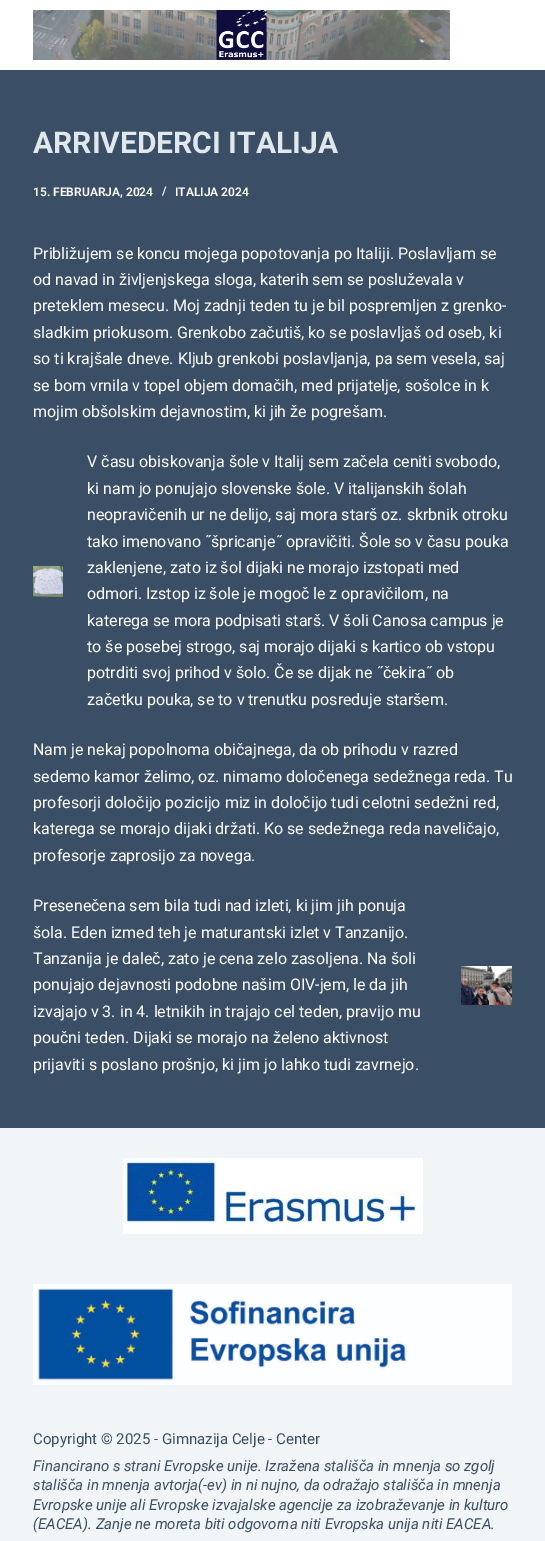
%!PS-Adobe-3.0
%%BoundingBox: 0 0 545 1541
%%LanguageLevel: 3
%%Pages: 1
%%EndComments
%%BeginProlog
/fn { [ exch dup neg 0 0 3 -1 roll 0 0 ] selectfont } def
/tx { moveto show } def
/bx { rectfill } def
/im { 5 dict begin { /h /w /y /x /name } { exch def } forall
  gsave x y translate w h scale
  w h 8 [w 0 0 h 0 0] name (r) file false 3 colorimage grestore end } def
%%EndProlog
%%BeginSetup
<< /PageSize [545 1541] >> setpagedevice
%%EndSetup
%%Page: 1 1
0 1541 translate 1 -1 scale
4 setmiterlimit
0.227 0.31 0.4 setrgbcolor
0 0 545 1541 bx
1 setgray
0 0 545 70 bx
(image0.raw) 33 10 417 50 im
/Roboto-Bold 30 fn
0.882 0.91 0.929 setrgbcolor
(ARRIVEDERCI ITALIJA) 33 153 tx
/Roboto-SemiBold 12 fn
1 setgray
(15. FEBRUARJA, 2024) 33 196 tx
(/) 162 195 tx
(ITALIJA 2024) 175 196 tx
/Roboto-Regular 16 fn
(Približujem se koncu mojega popotovanja po Italiji. Poslavljam se) 33 259 tx
(od navad in življenjskega sloga, katerih sem se posluževala v) 33 285 tx
(preteklem mesecu. Moj zadnji teden tu je bil pospremljen z grenko-) 33 311 tx
(sladkim priokusom. Grenkobo začutiš, ko se poslavljaš od oseb, ki) 33 338 tx
(so ti krajšale dneve. Kljub grenkobi poslavljanja, pa sem vesela, saj) 33 364 tx
(se bom vrnila v topel objem domačih, med prijatelje, sošolce in k) 33 391 tx
(mojim obšolskim dejavnostim, ki jih že pogrešam.) 33 417 tx
(image1.raw) 33 566 30 31 im
(V času obiskovanja šole v Italij sem začela ceniti svobodo,) 87 467 tx
(ki nam jo ponujajo slovenske šole. V italijanskih šolah) 87 494 tx
(neopravičenih ur ne delijo, saj mora starš oz. skrbnik otroku) 87 520 tx
(tako imenovano ˝špricanje˝ opravičiti. Šole so v času pouka) 87 547 tx
(zaklenjene, zato iz šol dijaki ne morajo izstopati med) 87 573 tx
(odmori. Izstop iz šole je mogoč le z opravičilom, na) 87 599 tx
(katerega se mora podpisati starš. V šoli Canosa campus je) 87 626 tx
(to še posebej strogo, saj morajo dijaki s kartico ob vstopu) 87 652 tx
(potrditi svoj prihod v šolo. Če se dijak ne ˝čekira˝ ob) 87 678 tx
(začetku pouka, se to v trenutku posreduje staršem.) 87 705 tx
(Nam je nekaj popolnoma običajnega, da ob prihodu v razred) 33 755 tx
(sedemo kamor želimo, oz. nimamo določenega sedežnega reda. Tu) 33 782 tx
(profesorji določijo pozicijo miz in določijo tudi celotni sedežni red,) 33 808 tx
(katerega se morajo dijaki držati. Ko se sedežnega reda naveličajo,) 33 834 tx
(profesorje zaprosijo za novega.) 33 861 tx
(Presenečena sem bila tudi nad izleti, ki jim jih ponuja) 33 911 tx
(šola. Eden izmed teh je maturantski izlet v Tanzanijo.) 33 938 tx
(Tanzanija je daleč, zato je cena zelo zasoljena. Na šoli) 33 964 tx
(ponujajo dejavnosti podobne našim OIV-jem, le da jih) 33 990 tx
(izvajajo v 3. in 4. letnikih in trajajo cel teden, pravijo mu) 33 1017 tx
(poučni teden. Dijaki se morajo na želeno aktivnost) 33 1043 tx
(prijaviti s poslano prošnjo, ki jim jo lahko tudi zavrnejo.) 33 1070 tx
(image2.raw) 461 966 51 39 im
0.949 0.961 0.969 setrgbcolor
0 1128 545 413 bx
(image3.raw) 123 1158 300 76 im
(image4.raw) 33 1284 479 101 im
/Roboto-Regular 15 fn
0.227 0.31 0.4 setrgbcolor
(Copyright © 2025 - Gimnazija Celje - Center) 33 1444 tx
/Roboto-Italic 15 fn
(Financirano s strani Evropske unije. Izražena stališča in mnenja so zgolj) 33 1471 tx
(stališča in mnenja avtorja\(-ev\) in ni nujno, da odražajo stališča in mnenja) 33 1490 tx
(Evropske unije ali Evropske izvajalske agencije za izobraževanje in kulturo) 33 1510 tx
(\(EACEA\). Zanje ne moreta biti odgovorna niti Evropska unija niti EACEA.) 33 1529 tx
showpage
%%EOF
